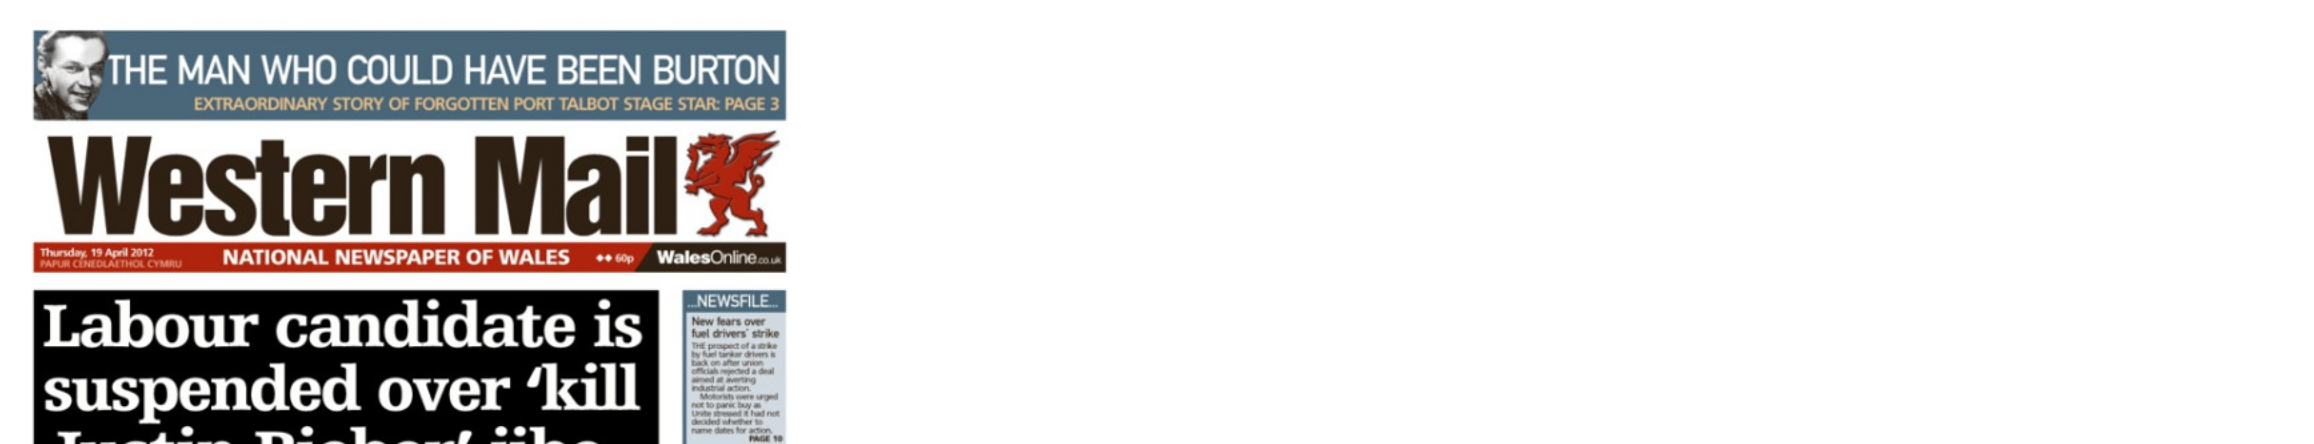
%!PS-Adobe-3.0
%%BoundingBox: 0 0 2314 444
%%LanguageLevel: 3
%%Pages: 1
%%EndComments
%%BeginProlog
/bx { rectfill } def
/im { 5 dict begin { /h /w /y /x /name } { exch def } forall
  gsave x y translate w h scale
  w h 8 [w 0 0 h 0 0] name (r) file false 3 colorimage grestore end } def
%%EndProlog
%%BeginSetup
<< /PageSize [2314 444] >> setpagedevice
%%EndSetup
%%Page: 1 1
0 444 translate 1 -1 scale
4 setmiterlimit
1 setgray
0 0 2314 444 bx
(image0.raw) 31 21 758 423 im
showpage
%%EOF
